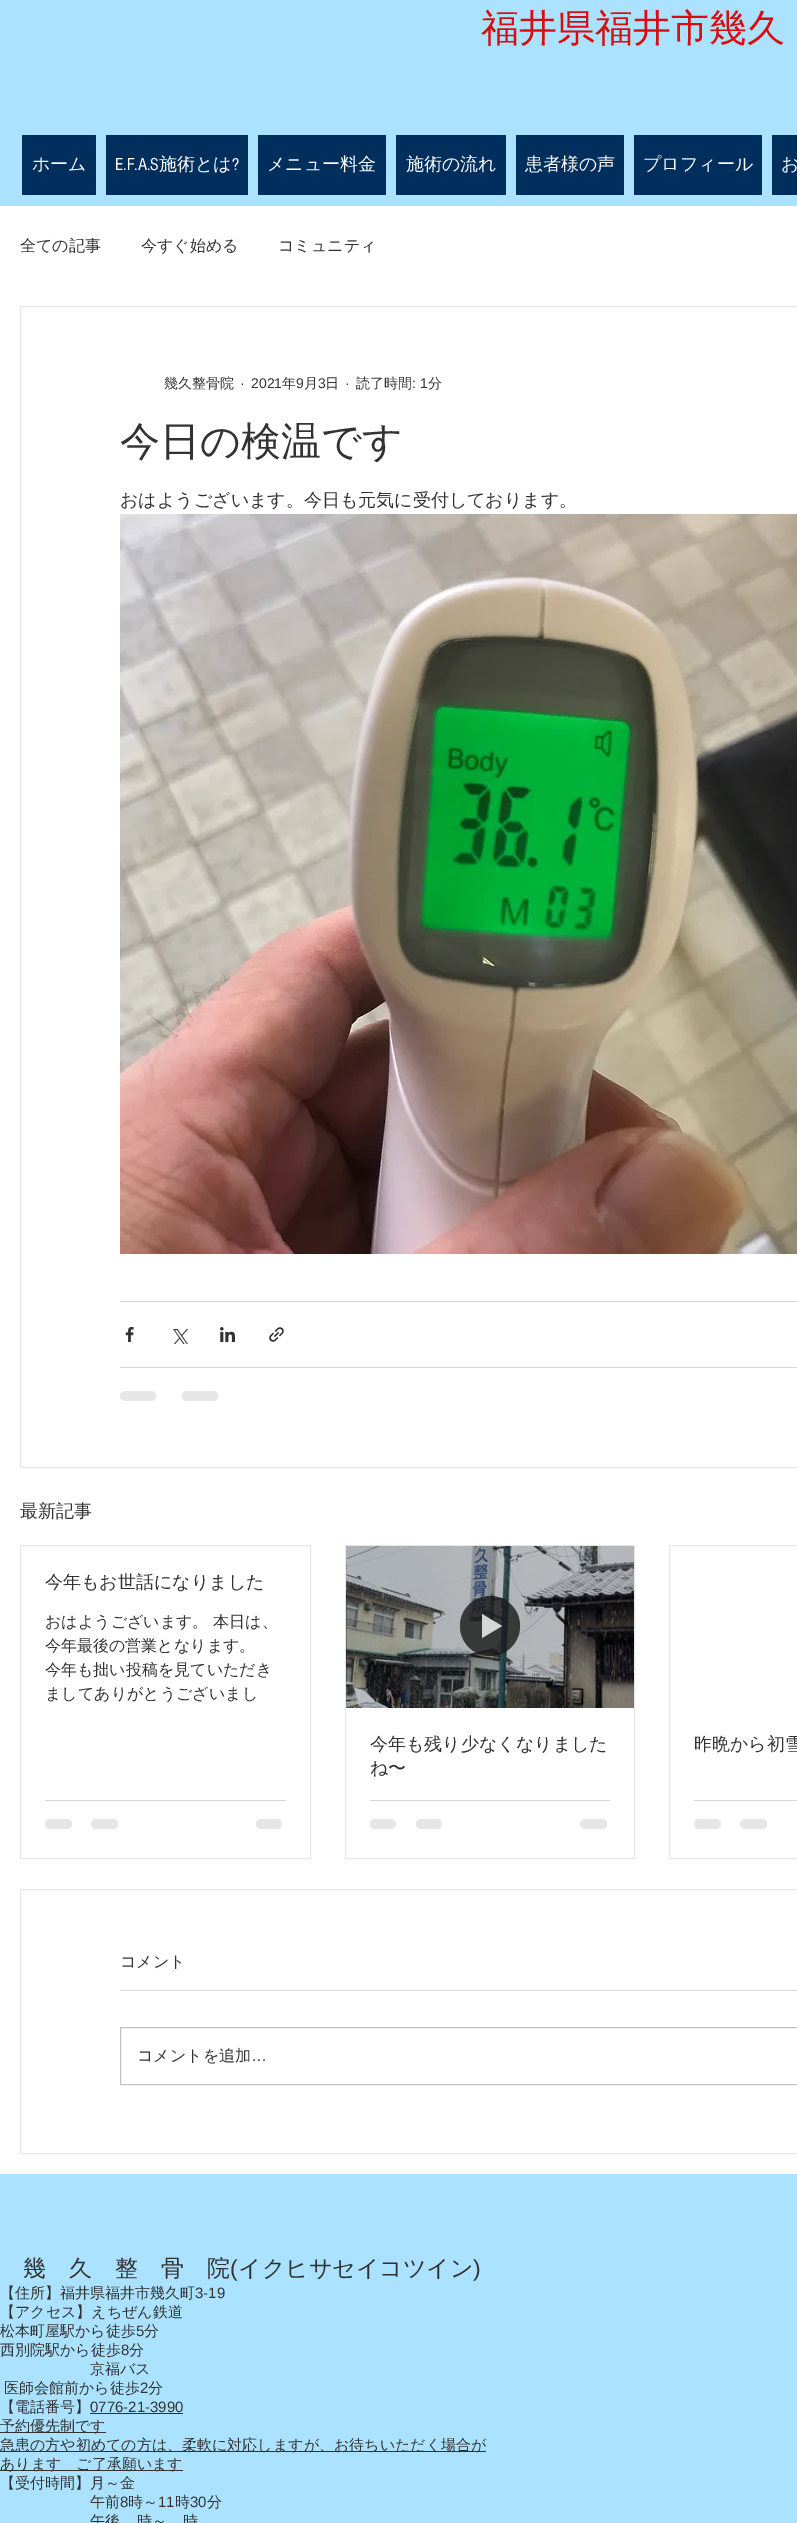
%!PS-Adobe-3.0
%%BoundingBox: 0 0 797 2523
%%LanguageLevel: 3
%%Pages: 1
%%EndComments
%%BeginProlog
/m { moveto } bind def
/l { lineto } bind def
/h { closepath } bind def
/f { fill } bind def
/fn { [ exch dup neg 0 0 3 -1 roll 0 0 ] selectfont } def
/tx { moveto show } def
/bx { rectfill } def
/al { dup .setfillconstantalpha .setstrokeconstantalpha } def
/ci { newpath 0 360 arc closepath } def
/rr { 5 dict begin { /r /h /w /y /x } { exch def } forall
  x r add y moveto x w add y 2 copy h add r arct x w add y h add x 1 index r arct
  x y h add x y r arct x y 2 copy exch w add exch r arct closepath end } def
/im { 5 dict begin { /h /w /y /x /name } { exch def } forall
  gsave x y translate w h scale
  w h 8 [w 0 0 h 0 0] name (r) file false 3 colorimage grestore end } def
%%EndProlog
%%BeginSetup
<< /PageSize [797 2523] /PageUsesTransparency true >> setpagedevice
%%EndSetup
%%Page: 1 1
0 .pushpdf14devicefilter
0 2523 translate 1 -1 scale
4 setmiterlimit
0.671 0.886 1 setrgbcolor
0 0 797 2523 bx
/WenQuanYiZenHei-Medium 38 fn
0.851 0.051 0.051 setrgbcolor
(福井県福井市幾久) 481 41 tx
0 0.18 0.365 setrgbcolor
22 135 74 60 bx
/WenQuanYiZenHei-Medium 18 fn
1 setgray
(ホーム) 32 170 tx
0 0.18 0.365 setrgbcolor
106 135 142 60 bx
/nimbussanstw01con-Regular 18 fn
1 setgray
(E.F.A.S) 115 170 tx
/WenQuanYiZenHei-Medium 18 fn
(施術とは) 159 170 tx
/nimbussanstw01con-Regular 18 fn
(?) 232 170 tx
0 0.18 0.365 setrgbcolor
258 135 128 60 bx
/WenQuanYiZenHei-Medium 18 fn
1 setgray
(メニュー料金) 267 170 tx
0 0.18 0.365 setrgbcolor
396 135 110 60 bx
1 setgray
(施術の流れ) 406 170 tx
0 0.18 0.365 setrgbcolor
516 135 108 60 bx
1 setgray
(患者様の声) 525 170 tx
0 0.18 0.365 setrgbcolor
634 135 128 60 bx
1 setgray
(プロフィール) 643 170 tx
0 0.18 0.365 setrgbcolor
772 135 25 60 bx
1 setgray
(お) 781 170 tx
0 206 797 1968 bx
/WenQuanYiZenHei-Medium 16 fn
0.196 setgray
(全ての記事) 20 251 tx
(今すぐ始める) 141 251 tx
(コミュニティ) 278 251 tx
0.91 0.906 0.906 setrgbcolor
20.5 306.5 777 1161 rectstroke
/WenQuanYiZenHei-Medium 14 fn
0.196 setgray
(幾久整骨院) 164 388 tx
/LiberationSans-Regular 14 fn
(·) 240 388 tx
(2021) 251 388 tx
/WenQuanYiZenHei-Medium 14 fn
(年) 282 388 tx
/LiberationSans-Regular 14 fn
(9) 296 388 tx
/WenQuanYiZenHei-Medium 14 fn
(月) 304 388 tx
/LiberationSans-Regular 14 fn
(3) 318 388 tx
/WenQuanYiZenHei-Medium 14 fn
(日) 325 388 tx
/LiberationSans-Regular 14 fn
(·) 345 388 tx
/WenQuanYiZenHei-Medium 14 fn
(読了時間) 356 388 tx
/LiberationSans-Regular 14 fn
(: 1) 412 388 tx
/WenQuanYiZenHei-Medium 14 fn
(分) 428 388 tx
/WenQuanYiZenHei-Medium 40 fn
(今日の検温です) 120 455 tx
/WenQuanYiZenHei-Medium 18 fn
(おはようございます。今日も元気に受付しております。) 120 506 tx
(image0.raw) 120 514 677 740 im
0.839 setgray
120 1301 677 1 bx
(image1.raw) 125 1327 9 15 im
(image2.raw) 173 1329 15 15 im
(image3.raw) 220 1327 15 15 im
(image4.raw) 269 1327 15 15 im
120 1367 677 1 bx
0.902 setgray
120 1391 36 10 5 rr f
182 1391 36 10 5 rr f
0.196 setgray
(最新記事) 20 1517 tx
0.91 0.906 0.906 setrgbcolor
20.5 1545.5 290 313 rectstroke
0.196 setgray
(今年もお世話になりました) 45 1588 tx
/WenQuanYiZenHei-Medium 16 fn
(おはようございます。 本日は、) 45 1627 tx
(今年最後の営業となります。) 45 1651 tx
(今年も拙い投稿を見ていただき) 45 1675 tx
(ましてありがとうございまし) 45 1699 tx
0.839 setgray
45 1800 241 1 bx
0.902 setgray
45 1819 27 10 5 rr f
91 1819 27 10 5 rr f
256 1819 26 10 5 rr f
0.91 0.906 0.906 setrgbcolor
345.5 1545.5 289 313 rectstroke
(image5.raw) 346 1546 288 162 im
0.8 al
0.102 setgray
490 1626 30 ci f
1 setgray
482 1614 m 482 1638 l 502 1626 l h f
/WenQuanYiZenHei-Medium 18 fn
1 al
0.196 setgray
(今年も残り少なくなりました) 370 1750 tx
(ね〜) 370 1774 tx
0.839 setgray
370 1800 240 1 bx
0.902 setgray
370 1819 26 10 5 rr f
416 1819 26 10 5 rr f
580 1819 27 10 5 rr f
0.91 0.906 0.906 setrgbcolor
669.5 1545.5 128 313 rectstroke
0.196 setgray
(昨晩から初雪) 694 1750 tx
0.839 setgray
694 1800 103 1 bx
0.902 setgray
694 1819 27 10 5 rr f
740 1819 27 10 5 rr f
0.91 0.906 0.906 setrgbcolor
20.5 1889.5 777 264 rectstroke
/WenQuanYiZenHei-Medium 16 fn
0.196 setgray
(コメント) 120 1967 tx
0.839 setgray
120 1990 677 1 bx
0.761 setgray
120.5 2027.5 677 57 rectstroke
0.196 setgray
(コメントを追加) 137 2061 tx
/LiberationSans-Regular 16 fn
(…) 251 2061 tx
/WenQuanYiZenHei-Medium 23 fn
(幾　久　整　骨　院) 23 2276 tx
/LiberationSans-Regular 23 fn
(\() 230 2276 tx
/WenQuanYiZenHei-Medium 23 fn
(イクヒサセイコツイン) 238 2276 tx
/LiberationSans-Regular 23 fn
(\)) 473 2276 tx
/WenQuanYiZenHei-Medium 15 fn
(【住所】福井県福井市幾久町) 0 2298 tx
/LiberationSans-Regular 15 fn
(3-19) 195 2298 tx
/WenQuanYiZenHei-Medium 15 fn
(【アクセス】えちぜん鉄道) 0 2317 tx
(松本町屋駅から徒歩) 0 2336 tx
/LiberationSans-Regular 15 fn
(5) 136 2336 tx
/WenQuanYiZenHei-Medium 15 fn
(分) 144 2336 tx
(西別院駅から徒歩) 0 2355 tx
/LiberationSans-Regular 15 fn
(8) 121 2355 tx
/WenQuanYiZenHei-Medium 15 fn
(分) 129 2355 tx
(京福バス) 90 2374 tx
(医師会館前から徒歩) 4 2393 tx
/LiberationSans-Regular 15 fn
(2) 140 2393 tx
/WenQuanYiZenHei-Medium 15 fn
(分) 148 2393 tx
(【電話番号】) 0 2412 tx
/LiberationSans-Regular 15 fn
(0776-21-3990) 90 2412 tx
90 2413 93 1 bx
0 2432 106 1 bx
/WenQuanYiZenHei-Medium 15 fn
(予約優先制です) 0 2431 tx
0 2451 486 1 bx
(急患の方や初めての方は、柔軟に対応しますが、お待ちいただく場合が) 0 2450 tx
0 2470 183 1 bx
(あります　ご了承願います) 0 2469 tx
(【受付時間】月～金) 0 2488 tx
(午前) 90 2507 tx
/LiberationSans-Regular 15 fn
(8) 120 2507 tx
/WenQuanYiZenHei-Medium 15 fn
(時～) 128 2507 tx
/LiberationSans-Regular 15 fn
(11) 158 2507 tx
/WenQuanYiZenHei-Medium 15 fn
(時) 175 2507 tx
/LiberationSans-Regular 15 fn
(30) 190 2507 tx
/WenQuanYiZenHei-Medium 15 fn
(分) 207 2507 tx
(午後) 90 2526 tx
(時～) 137 2526 tx
(時) 183 2526 tx
.poppdf14devicefilter showpage
%%EOF
